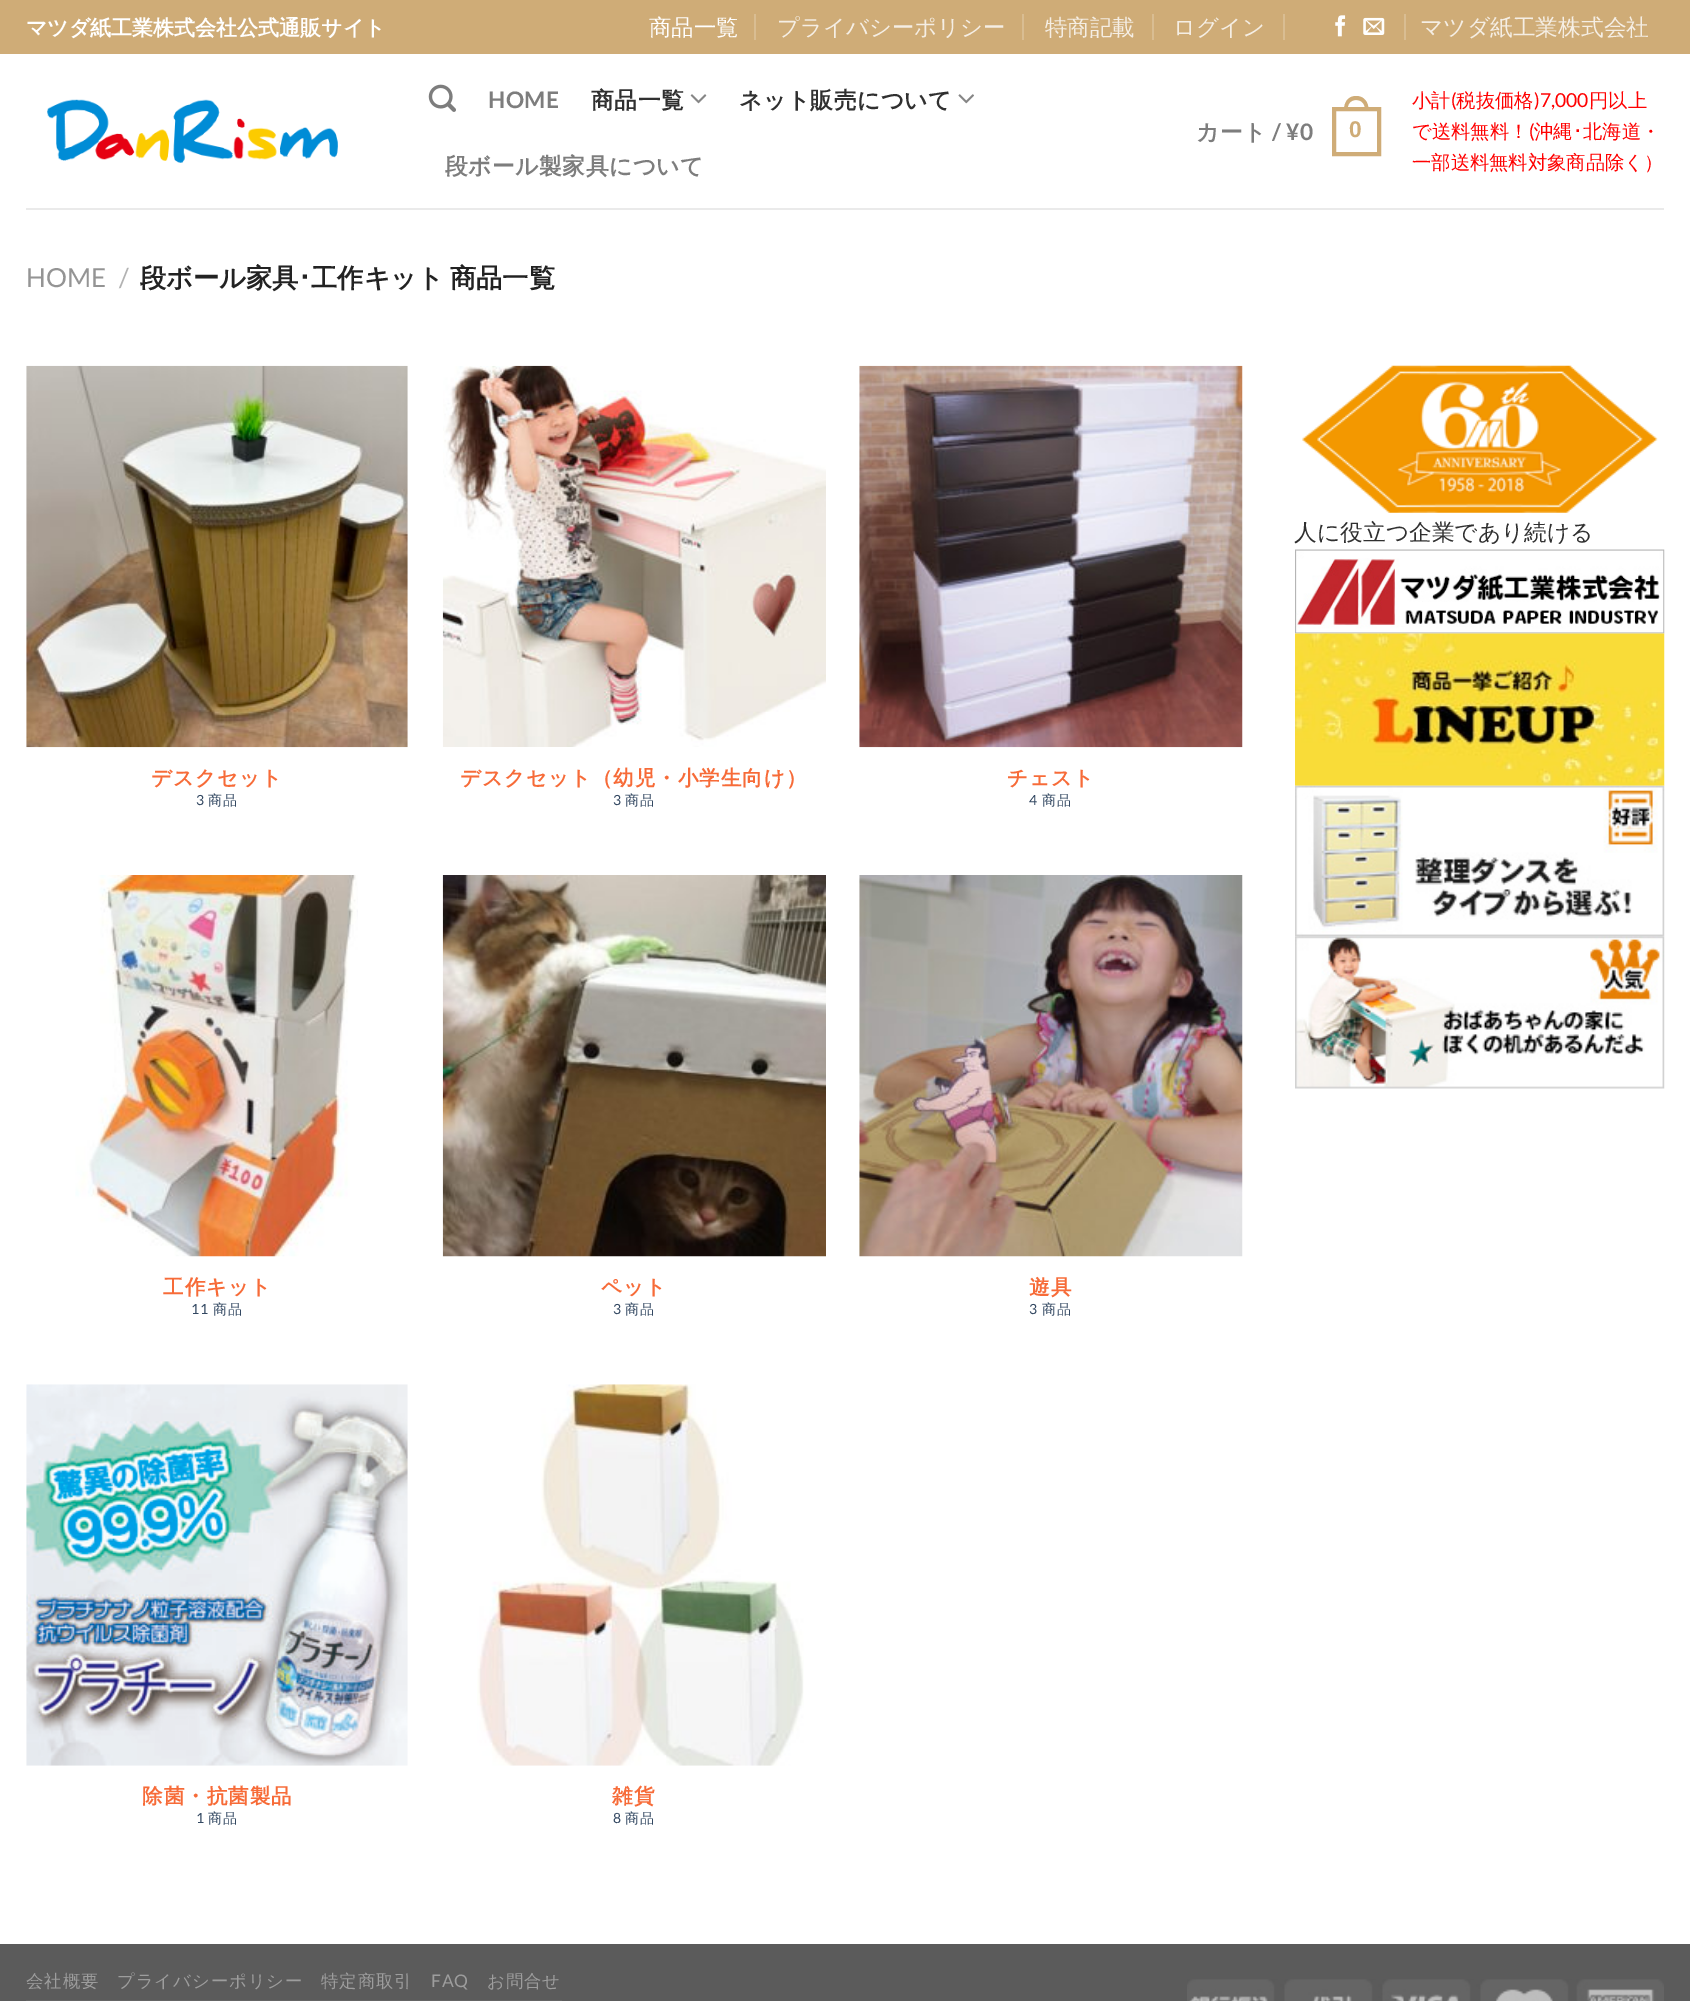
%!PS-Adobe-3.0
%%BoundingBox: 0 0 1690 2001
%%LanguageLevel: 3
%%Pages: 1
%%EndComments
%%BeginProlog
/m { moveto } bind def
/l { lineto } bind def
/c { curveto } bind def
/h { closepath } bind def
/w { setlinewidth } bind def
/fn { [ exch dup neg 0 0 3 -1 roll 0 0 ] selectfont } def
/tx { moveto show } def
/bx { rectfill } def
/im { 5 dict begin { /h /w /y /x /name } { exch def } forall
  gsave x y translate w h scale
  w h 8 [w 0 0 h 0 0] name (r) file false 3 colorimage grestore end } def
%%EndProlog
%%BeginSetup
<< /PageSize [1690 2001] >> setpagedevice
%%EndSetup
%%Page: 1 1
0 2001 translate 1 -1 scale
4 setmiterlimit
1 setgray
0 0 1690 2001 bx
0.812 0.675 0.467 setrgbcolor
0 0 1690 54 bx
/WenQuanYiZenHei-Bold 21 fn
1 setgray
(マツダ紙工業株式会社公式通販サイト) 26 35 tx
/WenQuanYiZenHei-Medium 22.4 fn
(商品一覧) 649 35 tx
0.851 0.741 0.573 setrgbcolor
754 14 2 26 bx
0.961 0.933 0.894 setrgbcolor
(プライバシーポリシー) 777 35 tx
0.851 0.741 0.573 setrgbcolor
1022 14 2 26 bx
0.961 0.933 0.894 setrgbcolor
(特商記載) 1045 35 tx
0.851 0.741 0.573 setrgbcolor
1152 14 2 26 bx
0.961 0.933 0.894 setrgbcolor
(ログイン) 1173 35 tx
0.851 0.741 0.573 setrgbcolor
1283 14 2 26 bx
(image0.raw) 1335 15 11 22 im
(image1.raw) 1363 17 22 18 im
1404 14 2 26 bx
/WenQuanYiZenHei-Medium 22.75 fn
0.961 0.933 0.894 setrgbcolor
(マツダ紙工業株式会社) 1420 35 tx
(image2.raw) 47 99 291 64 im
(image3.raw) 428 84 28 28 im
/Lato-Bold 22.75 fn
0.49 setgray
488 108 m 0.5 0 (HOME) ashow
/WenQuanYiZenHei-Bold 22.75 fn
0.188 setgray
591 108 m 0.5 0 (商品一覧) ashow
(image4.raw) 690 94 17 10 im
739 108 m 0.5 0 (ネット販売について) ashow
(image5.raw) 958 94 16 10 im
0.49 setgray
445 174 m 0.5 0 (段ボール製家具について) ashow
1196 140 m 0.5 0 (カート) ashow
/Lato-Bold 22.75 fn
1272 140 m 0.5 0 (/ ¥0) ashow
0.812 0.675 0.467 setrgbcolor
4 w
1334 109 45 45 rectstroke
1356 96 m 1364.5 96 1368.5 102.5 1368.5 110 c 1344 110 l 1344 102.5 1348 96 1356 96 c h 1356 100 m 1362.5 100 1365 104.5 1365 110 c 1347.5 110 l 1347.5 104.5 1350 100 1356 100 c h eofill
/LiberationSans-Bold 22.75 fn
1349 137 m 0.5 0 (0) ashow
/WenQuanYiZenHei-Medium 19.3 fn
1 0 0 setrgbcolor
(小計 税抜価格) 1412 107 tx
(円以上) 1589 107 tx
/Lato-Regular 19.3 fn
(\() 1451 107 tx
(\)7,000) 1534 107 tx
/WenQuanYiZenHei-Medium 19.3 fn
(で送料無料！ 沖縄) 1412 138 tx
(北海道・) 1583 138 tx
/Lato-Regular 19.3 fn
(\() 1529 138 tx
/IPAPGothic-Regular 19.3 fn
(･) 1573 138 tx
/WenQuanYiZenHei-Medium 19.3 fn
(一部送料無料対象商品除く）) 1412 169 tx
0.918 setgray
26 208 1638 2 bx
/Lato-Regular 26.25 fn
0.58 setgray
(HOME) 26 287 tx
0.698 setgray
(/) 119 287 tx
/WenQuanYiZenHei-Bold 26.25 fn
0.133 setgray
(段ボール家具) 140 287 tx
/IPAPGothic-Bold 26.25 fn
(･) 298 287 tx
/WenQuanYiZenHei-Bold 26.25 fn
311 287 m -2 0 32 (工作キット 商品一覧) widthshow
(image6.raw) 1302 365 356 148 im
/WenQuanYiZenHei-Medium 22.75 fn
0.188 setgray
(人に役立つ企業であり続ける) 1294 540 tx
(image7.raw) 1295 549 370 85 im
(image8.raw) 1295 633 370 153 im
(image9.raw) 1295 785 370 152 im
(image10.raw) 1295 936 370 153 im
(image11.raw) 26 365 382 383 im
/WenQuanYiZenHei-Bold 20.5 fn
0.969 0.42 0.22 setrgbcolor
151 785 m 1 0 (デスクセット) ashow
/Lato-Regular 14 fn
0.2 0.282 0.384 setrgbcolor
196 805 m 1 0 (3) ashow
/WenQuanYiZenHei-Medium 14 fn
208 805 m 1 0 (商品) ashow
(image12.raw) 442 365 384 382 im
/WenQuanYiZenHei-Bold 20.5 fn
0.969 0.42 0.22 setrgbcolor
460 785 m 1 0 (デスクセット（幼児・小学生向け）) ashow
/Lato-Regular 14 fn
0.2 0.282 0.384 setrgbcolor
613 805 m 1 0 (3) ashow
/WenQuanYiZenHei-Medium 14 fn
625 805 m 1 0 (商品) ashow
(image13.raw) 859 365 384 383 im
/WenQuanYiZenHei-Bold 20.5 fn
0.969 0.42 0.22 setrgbcolor
1007 785 m 1 0 (チェスト) ashow
/Lato-Regular 14 fn
0.2 0.282 0.384 setrgbcolor
1029 805 m 1 0 (4) ashow
/WenQuanYiZenHei-Medium 14 fn
1042 805 m 1 0 (商品) ashow
(image14.raw) 75 875 283 382 im
/WenQuanYiZenHei-Bold 20.5 fn
0.969 0.42 0.22 setrgbcolor
163 1294 m 1 0 (工作キット) ashow
/Lato-Regular 14 fn
0.2 0.282 0.384 setrgbcolor
191 1314 m 1 0 (11) ashow
/WenQuanYiZenHei-Medium 14 fn
213 1314 m 1 0 (商品) ashow
(image15.raw) 442 875 384 382 im
/WenQuanYiZenHei-Bold 20.5 fn
0.969 0.42 0.22 setrgbcolor
601 1294 m 1 0 (ペット) ashow
/Lato-Regular 14 fn
0.2 0.282 0.384 setrgbcolor
613 1314 m 1 0 (3) ashow
/WenQuanYiZenHei-Medium 14 fn
625 1314 m 1 0 (商品) ashow
(image16.raw) 859 875 384 382 im
/WenQuanYiZenHei-Bold 20.5 fn
0.969 0.42 0.22 setrgbcolor
1029 1294 m 1 0 (遊具) ashow
/Lato-Regular 14 fn
0.2 0.282 0.384 setrgbcolor
1029 1314 m 1 0 (3) ashow
/WenQuanYiZenHei-Medium 14 fn
1042 1314 m 1 0 (商品) ashow
(image17.raw) 26 1384 382 382 im
/WenQuanYiZenHei-Bold 20.5 fn
0.969 0.42 0.22 setrgbcolor
142 1803 m 1 0 (除菌・抗菌製品) ashow
/Lato-Regular 14 fn
0.2 0.282 0.384 setrgbcolor
196 1823 m 1 0 (1) ashow
/WenQuanYiZenHei-Medium 14 fn
208 1823 m 1 0 (商品) ashow
(image18.raw) 477 1384 327 382 im
/WenQuanYiZenHei-Bold 20.5 fn
0.969 0.42 0.22 setrgbcolor
612 1803 m 1 0 (雑貨) ashow
/Lato-Regular 14 fn
0.2 0.282 0.384 setrgbcolor
613 1823 m 1 0 (8) ashow
/WenQuanYiZenHei-Medium 14 fn
625 1823 m 1 0 (商品) ashow
0.357 setgray
0 1944 1690 57 bx
0.396 setgray
26 2000 536 1 bx
/WenQuanYiZenHei-Medium 17.4 fn
0.616 setgray
26 1987 m 0.9 0 (会社概要) ashow
117 1987 m 0.9 0 (プライバシーポリシー) ashow
321 1987 m 0.9 0 (特定商取引) ashow
/Lato-Regular 17.4 fn
431 1987 m 0.9 0 (FAQ) ashow
/WenQuanYiZenHei-Medium 17.4 fn
487 1987 m 0.9 0 (お問合せ) ashow
(image19.raw) 1187 1979 477 22 im
showpage
%%EOF
